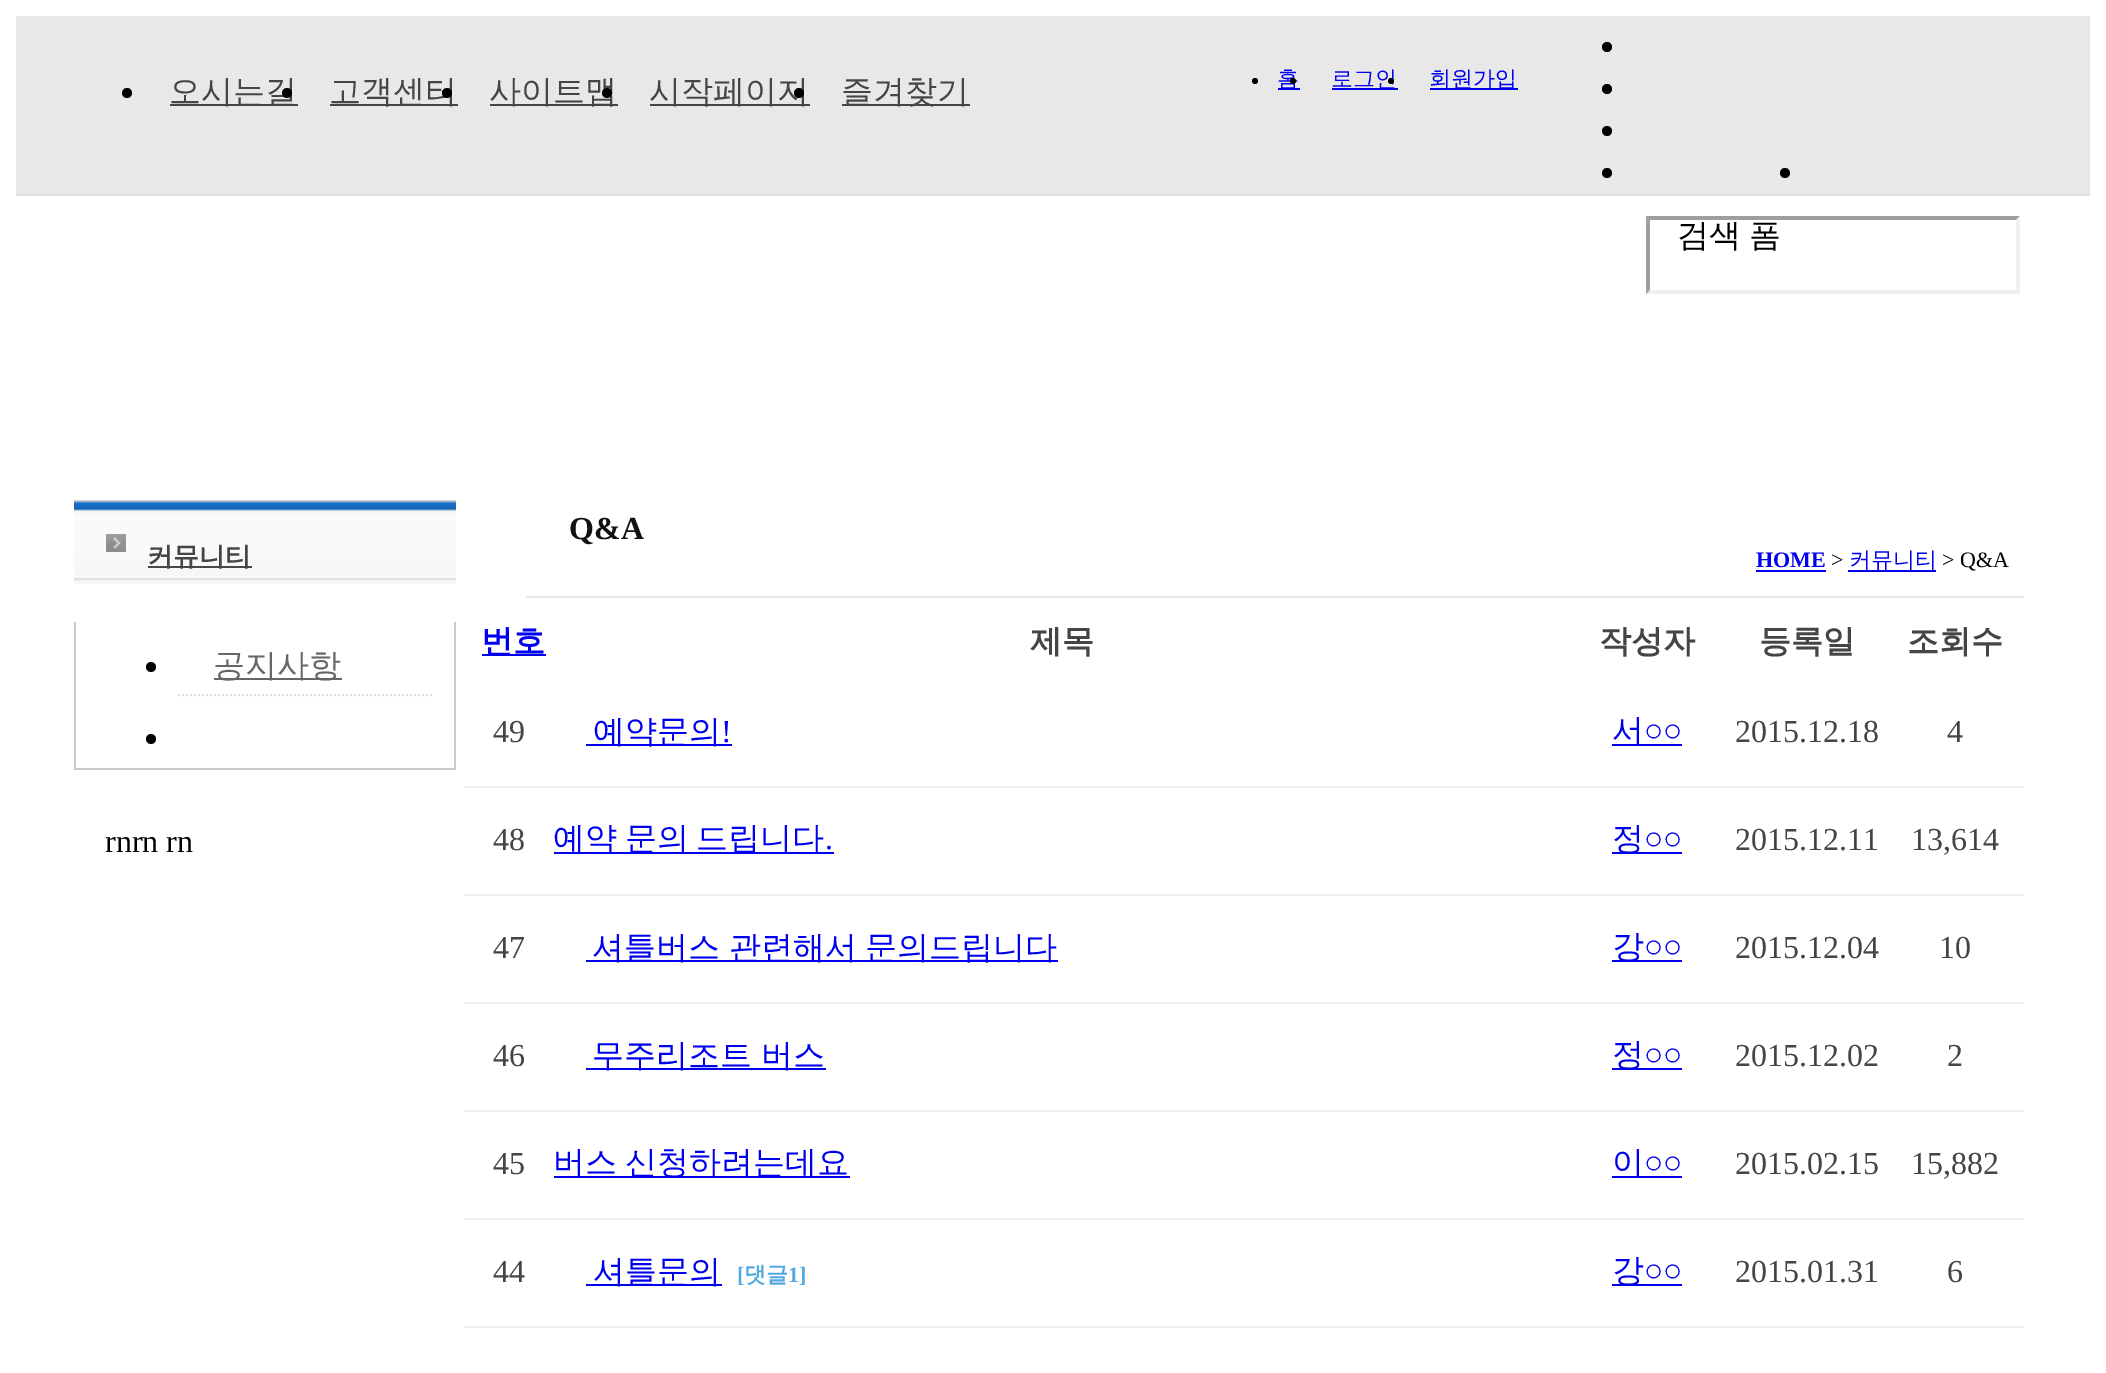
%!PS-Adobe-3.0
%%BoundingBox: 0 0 2106 1373
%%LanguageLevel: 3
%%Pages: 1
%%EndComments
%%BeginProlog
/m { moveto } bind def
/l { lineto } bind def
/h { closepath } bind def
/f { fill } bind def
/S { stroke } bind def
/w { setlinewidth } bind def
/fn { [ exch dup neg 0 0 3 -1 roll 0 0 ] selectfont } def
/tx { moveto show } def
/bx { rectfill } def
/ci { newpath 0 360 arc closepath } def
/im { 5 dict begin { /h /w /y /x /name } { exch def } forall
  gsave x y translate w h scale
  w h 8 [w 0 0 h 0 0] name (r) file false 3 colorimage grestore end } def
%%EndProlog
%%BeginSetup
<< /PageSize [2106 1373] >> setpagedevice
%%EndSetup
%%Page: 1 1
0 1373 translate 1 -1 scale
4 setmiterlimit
1 setgray
0 0 2106 1373 bx
0.91 setgray
16 16 2074 178 bx
0.867 setgray
16 194 2074 2 bx
0 setgray
127 93 5 ci f
0.271 setgray
170 104 128 2 bx
/WenQuanYiZenHei-Medium 32 fn
(오시는길) 169 102 tx
0 setgray
287 93 5 ci f
0.271 setgray
330 104 128 2 bx
(고객센터) 329 102 tx
0 setgray
447 93 5 ci f
0.271 setgray
490 104 128 2 bx
(사이트맵) 489 102 tx
0 setgray
607 93 5 ci f
0.271 setgray
650 104 160 2 bx
(시작페이지) 649 102 tx
0 setgray
799 93 5 ci f
0.271 setgray
842 104 128 2 bx
(즐겨찾기) 841 102 tx
0 setgray
1255 81 3 ci f
0 0 0.933 setrgbcolor
1278 88 22 2 bx
/WenQuanYiZenHei-Medium 22 fn
(홈) 1277 86 tx
0 setgray
1293 81 3 ci f
0 0 0.933 setrgbcolor
1332 88 66 2 bx
(로그인) 1331 86 tx
0 setgray
1391 81 3 ci f
0 0 0.933 setrgbcolor
1430 88 88 2 bx
(회원가입) 1429 86 tx
0 setgray
1607 47 5 ci f
1607 89 5 ci f
1607 131 5 ci f
1607 173 5 ci f
1785 173 5 ci f
0.624 setgray
1646 216 m 2020 216 l 2016 220 l 1650 220 l h f
0.937 setgray
2020 216 m 2020 294 l 2016 290 l 2016 220 l h f
2020 294 m 1646 294 l 1650 290 l 2016 290 l h f
0.624 setgray
1646 294 m 1646 216 l 1650 220 l 1650 290 l h f
/WenQuanYiZenHei-Medium 32 fn
0 setgray
1677 246 m -2 0 32 (검색 폼) widthshow
(image0.raw) 74 500 382 84 im
(image1.raw) 106 534 20 18 im
0.278 setgray
148 566 104 2 bx
/WenQuanYiZenHei-Bold 26 fn
0.271 setgray
(커뮤니티) 147 565 tx
0.792 setgray
454 622 2 148 bx
74 768 382 2 bx
74 622 2 148 bx
0.867 setgray
2 w
[2 2] 0 setdash
178 695 m 432 695 l S
0 setgray
151 667 5 ci f
0.4 setgray
214 678 128 2 bx
/WenQuanYiZenHei-Medium 32 fn
(공지사항) 213 676 tx
0 setgray
151 739 5 ci f
/LiberationSerif-Regular 32 fn
(rnrn rn) 105 852 tx
0.91 setgray
526 596 1498 2 bx
/LiberationSerif-Bold 32 fn
0.071 setgray
(Q&A) 569 539 tx
/LiberationSerif-Bold 22 fn
0 0 0.933 setrgbcolor
(HOME) 1756 567 tx
1756 570 70 2 bx
/LiberationSerif-Regular 22 fn
0 setgray
(>) 1831 567 tx
0 0 0.933 setrgbcolor
1848 570 88 2 bx
/WenQuanYiZenHei-Medium 22 fn
(커뮤니티) 1849 567 tx
/LiberationSerif-Regular 22 fn
0 setgray
(> Q&A) 1942 567 tx
0 0 0.933 setrgbcolor
482 654 64 2 bx
/WenQuanYiZenHei-Bold 32 fn
(번호) 481 652 tx
0.271 setgray
(제목) 1030 652 tx
(작성자) 1599 652 tx
(등록일) 1759 652 tx
(조회수) 1907 652 tx
/LiberationSerif-Regular 32 fn
(49) 493 742 tx
0 0 0.933 setrgbcolor
586 744 146 2 bx
/WenQuanYiZenHei-Medium 32 fn
(예약문의) 593 742 tx
/LiberationSerif-Regular 32 fn
(!) 721 742 tx
1612 744 70 2 bx
/WenQuanYiZenHei-Medium 32 fn
(서) 1612 741 tx
/LiberationSerif-Regular 32 fn
(○○) 1644 741 tx
0.271 setgray
(2015.12.18) 1735 742 tx
0.929 setgray
464 786 1560 2 bx
0.271 setgray
(4) 1947 742 tx
(48) 493 850 tx
0 0 0.933 setrgbcolor
554 852 280 2 bx
/WenQuanYiZenHei-Medium 32 fn
553 849 m -2 0 32 (예약 문의 드립니다) widthshow
/LiberationSerif-Regular 32 fn
(.) 825 849 tx
1612 852 70 2 bx
/WenQuanYiZenHei-Medium 32 fn
(정) 1612 849 tx
/LiberationSerif-Regular 32 fn
(○○) 1644 849 tx
0.271 setgray
(2015.12.11) 1735 850 tx
0.929 setgray
464 894 1560 2 bx
0.271 setgray
(13,614) 1911 850 tx
(47) 493 958 tx
0 0 0.933 setrgbcolor
586 960 472 2 bx
/WenQuanYiZenHei-Medium 32 fn
592 958 m -1 0 32 (셔틀버스 관련해서 문의드립니다) widthshow
1612 960 70 2 bx
(강) 1612 957 tx
/LiberationSerif-Regular 32 fn
(○○) 1644 957 tx
0.271 setgray
(2015.12.04) 1735 958 tx
0.929 setgray
464 1002 1560 2 bx
0.271 setgray
(10) 1939 958 tx
(46) 493 1066 tx
0 0 0.933 setrgbcolor
586 1068 240 2 bx
/WenQuanYiZenHei-Medium 32 fn
592 1066 m -1 0 32 (무주리조트 버스) widthshow
1612 1068 70 2 bx
(정) 1612 1065 tx
/LiberationSerif-Regular 32 fn
(○○) 1644 1065 tx
0.271 setgray
(2015.12.02) 1735 1066 tx
0.929 setgray
464 1110 1560 2 bx
0.271 setgray
(2) 1947 1066 tx
(45) 493 1174 tx
0 0 0.933 setrgbcolor
554 1176 296 2 bx
/WenQuanYiZenHei-Medium 32 fn
553 1173 m -2 0 32 (버스 신청하려는데요) widthshow
1612 1176 70 2 bx
(이) 1612 1173 tx
/LiberationSerif-Regular 32 fn
(○○) 1644 1173 tx
0.271 setgray
(2015.02.15) 1735 1174 tx
0.929 setgray
464 1218 1560 2 bx
0.271 setgray
(15,882) 1911 1174 tx
(44) 493 1282 tx
0 0 0.933 setrgbcolor
586 1284 136 2 bx
/WenQuanYiZenHei-Medium 32 fn
(셔틀문의) 593 1282 tx
/LiberationSerif-Bold 22 fn
0.322 0.663 0.878 setrgbcolor
([) 737 1282 tx
/WenQuanYiZenHei-Bold 22 fn
(댓글) 744 1282 tx
/LiberationSerif-Bold 22 fn
(1]) 788 1282 tx
0 0 0.933 setrgbcolor
1612 1284 70 2 bx
/WenQuanYiZenHei-Medium 32 fn
(강) 1612 1281 tx
/LiberationSerif-Regular 32 fn
(○○) 1644 1281 tx
0.271 setgray
(2015.01.31) 1735 1282 tx
0.929 setgray
464 1326 1560 2 bx
0.271 setgray
(6) 1947 1282 tx
showpage
%%EOF
